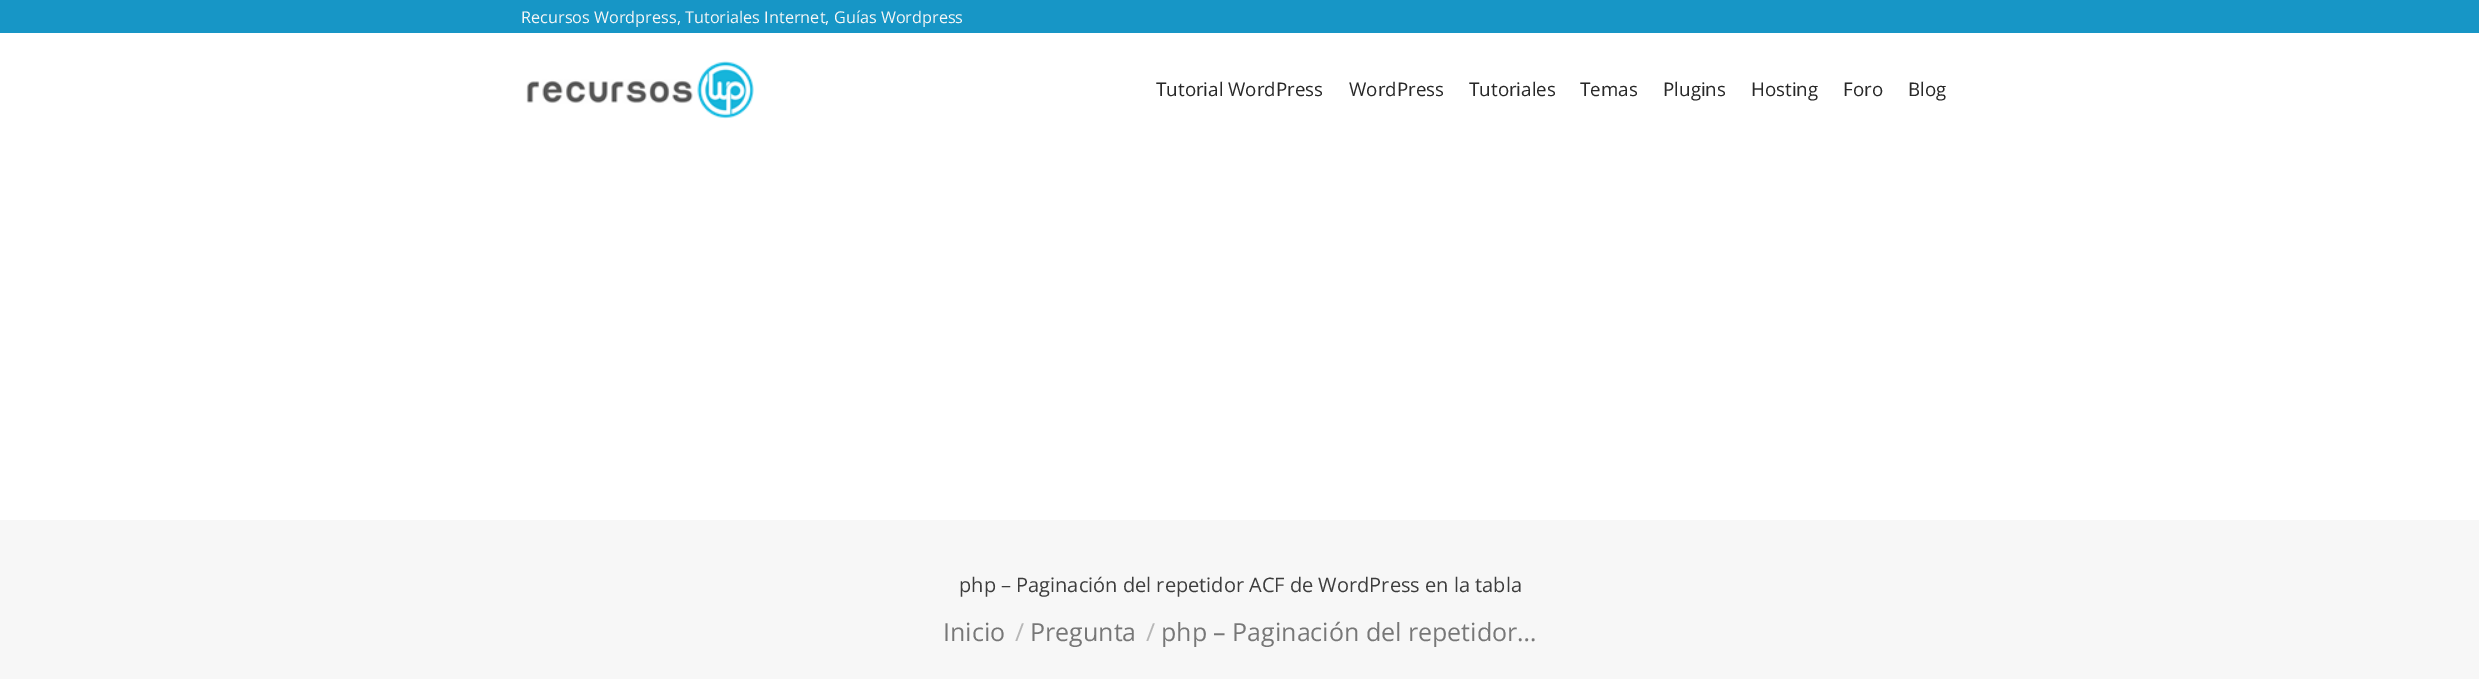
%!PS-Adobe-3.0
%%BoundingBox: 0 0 2479 679
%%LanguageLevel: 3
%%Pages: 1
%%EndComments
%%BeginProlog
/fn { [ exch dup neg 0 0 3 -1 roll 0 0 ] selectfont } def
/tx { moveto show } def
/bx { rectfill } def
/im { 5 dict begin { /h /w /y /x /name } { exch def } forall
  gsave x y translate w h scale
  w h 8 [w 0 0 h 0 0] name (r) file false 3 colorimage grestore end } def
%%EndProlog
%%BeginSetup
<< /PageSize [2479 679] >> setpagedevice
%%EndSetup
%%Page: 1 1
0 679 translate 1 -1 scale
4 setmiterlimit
1 setgray
0 0 2479 679 bx
0.09 0.588 0.776 setrgbcolor
0 0 2479 33 bx
/OpenSans-Regular 16.25 fn
0.969 setgray
(Recursos Wordpress, Tutoriales Internet, Guías Wordpress) 521 23 tx
(image0.raw) 526 61 228 58 im
/OpenSans-Regular 18.75 fn
0.157 setgray
(Tutorial WordPress) 1156 96 tx
(WordPress) 1349 96 tx
(Tutoriales) 1469 96 tx
(Temas) 1580 96 tx
(Plugins) 1663 96 tx
(Hosting) 1751 96 tx
(Foro) 1843 96 tx
(Blog) 1908 96 tx
0.969 setgray
0 520 2479 159 bx
/OpenSans-Regular 20 fn
0.239 setgray
(php – Paginación del repetidor ACF de WordPress en la tabla) 959 592 tx
/OpenSans-Regular 25 fn
0.467 setgray
(Inicio) 943 641 tx
0.718 setgray
(/) 1015 641 tx
0.467 setgray
(Pregunta) 1030 641 tx
0.718 setgray
(/) 1146 641 tx
0.467 setgray
(php – Paginación del repetidor…) 1161 641 tx
showpage
%%EOF
